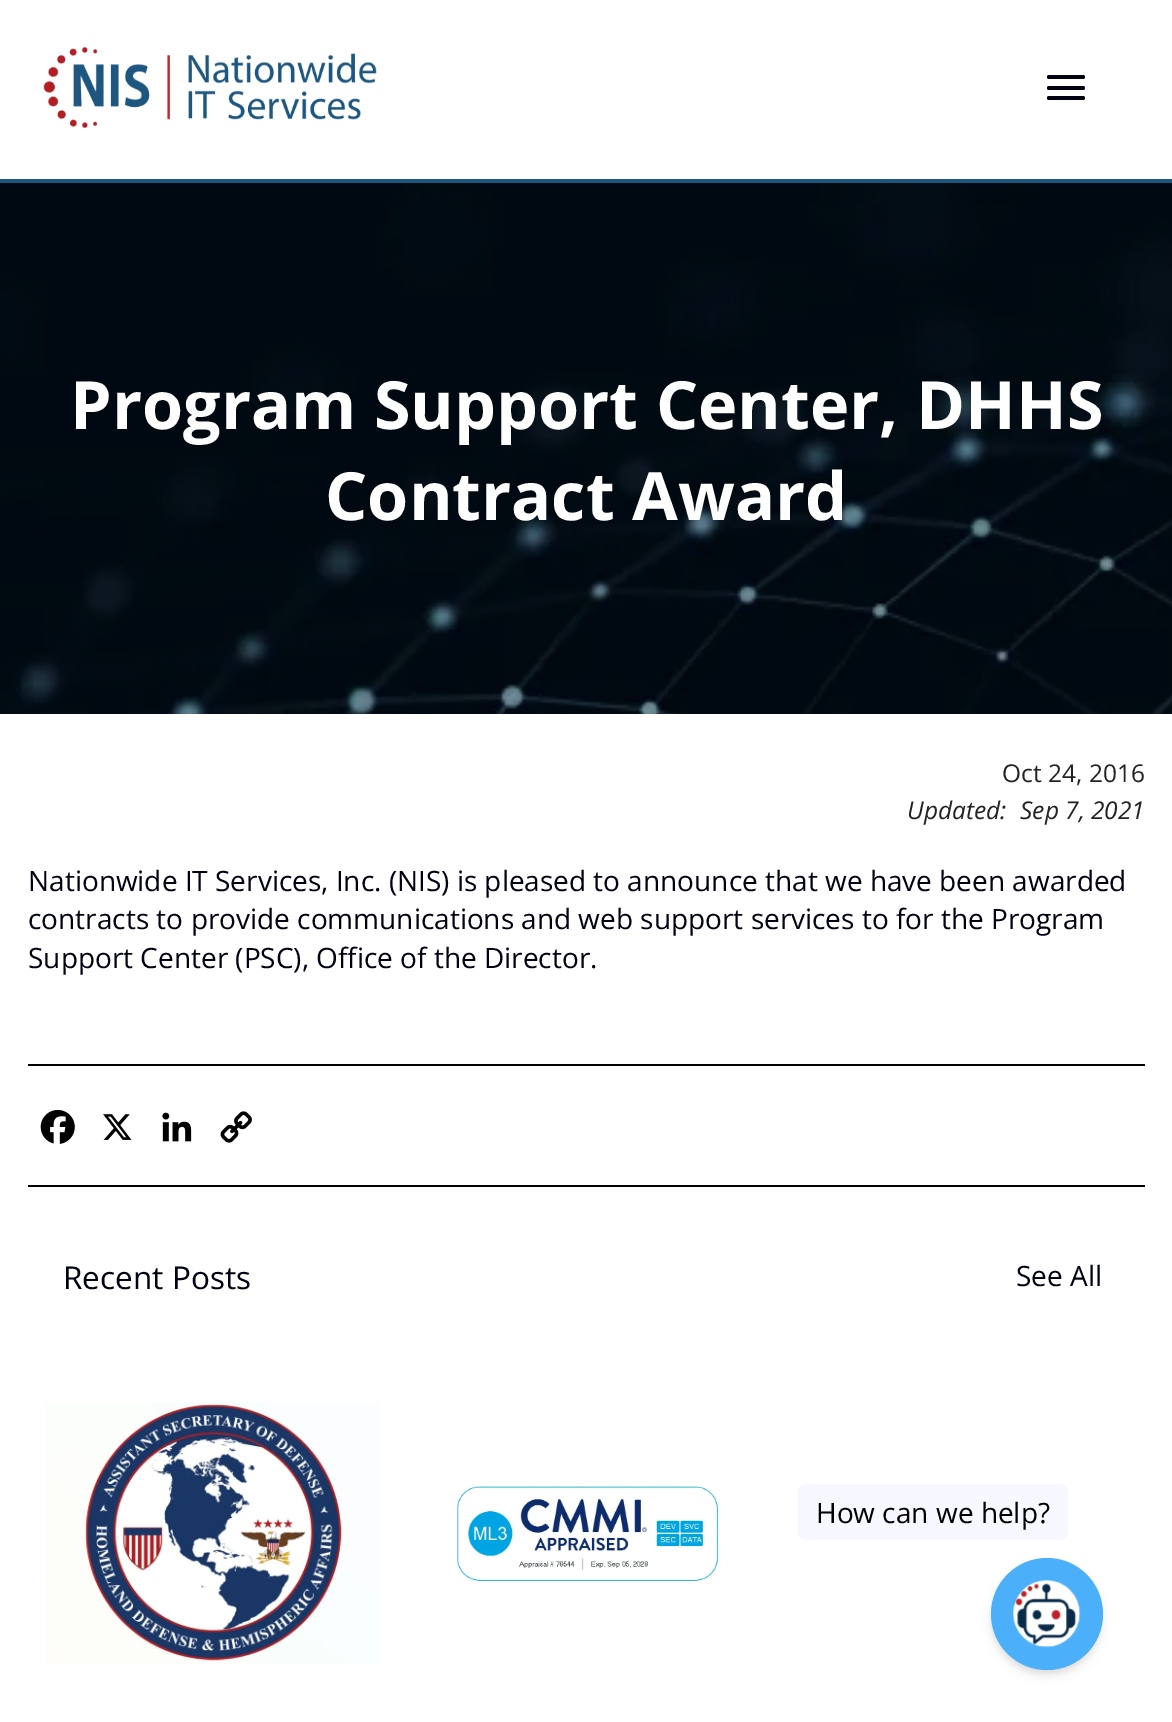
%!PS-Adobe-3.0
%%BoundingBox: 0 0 1172 1722
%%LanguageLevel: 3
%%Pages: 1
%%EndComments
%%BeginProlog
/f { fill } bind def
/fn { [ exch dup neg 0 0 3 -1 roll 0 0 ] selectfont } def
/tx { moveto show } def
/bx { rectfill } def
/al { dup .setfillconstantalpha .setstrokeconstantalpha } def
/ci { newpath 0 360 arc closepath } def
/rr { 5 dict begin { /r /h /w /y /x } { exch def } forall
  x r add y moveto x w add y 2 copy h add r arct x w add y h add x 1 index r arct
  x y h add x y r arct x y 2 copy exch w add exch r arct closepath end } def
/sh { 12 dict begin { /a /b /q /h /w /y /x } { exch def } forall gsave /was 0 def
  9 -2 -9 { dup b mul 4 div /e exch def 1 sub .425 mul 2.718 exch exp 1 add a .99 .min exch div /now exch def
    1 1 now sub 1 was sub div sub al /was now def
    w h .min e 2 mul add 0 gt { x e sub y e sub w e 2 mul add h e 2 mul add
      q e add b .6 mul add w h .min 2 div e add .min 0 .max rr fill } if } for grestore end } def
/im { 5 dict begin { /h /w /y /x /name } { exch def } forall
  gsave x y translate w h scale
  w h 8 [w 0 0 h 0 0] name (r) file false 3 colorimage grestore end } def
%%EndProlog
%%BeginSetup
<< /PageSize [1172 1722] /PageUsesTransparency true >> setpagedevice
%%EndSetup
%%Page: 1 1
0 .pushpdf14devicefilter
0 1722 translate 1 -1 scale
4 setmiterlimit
1 setgray
0 0 1172 1722 bx
0.114 0.337 0.498 setrgbcolor
0 179 1172 4 bx
(image0.raw) 43 47 334 81 im
0 0.004 0.067 setrgbcolor
1047 75 38 4 2 rr f
1047 86 38 4 2 rr f
1047 96 38 4 2 rr f
(image1.raw) 0 183 1172 531 im
/OpenSans-Bold 66.5 fn
1 setgray
(Program Support Center, DHHS) 70 429 tx
(Contract Award) 325 520 tx
/OpenSans-Regular 24.5 fn
0.133 setgray
(Oct 24, 2016) 1002 782 tx
/OpenSans-Italic 24.5 fn
(Updated:) 907 819 tx
(Sep 7, 2021) 1020 819 tx
/OpenSans-Regular 28 fn
0 0.004 0.067 setrgbcolor
(Nationwide IT Services, Inc. \(NIS\) is pleased to announce that we have been awarded) 28 891 tx
(contracts to provide communications and web support services to for the Program) 28 929 tx
(Support Center \(PSC\), Office of the Director.) 28 968 tx
0 setgray
28 1064 1117 2 bx
(image2.raw) 40 1109 35 35 im
(image3.raw) 103 1114 29 26 im
(image4.raw) 162 1112 30 30 im
(image5.raw) 220 1111 32 32 im
28 1185 1117 2 bx
/OpenSans-Regular 31.5 fn
0 0.004 0.067 setrgbcolor
(Recent Posts) 63 1289 tx
/OpenSans-Regular 28 fn
(See All) 1016 1286 tx
(image6.raw) 45 1402 335 262 im
(image7.raw) 456 1486 263 96 im
0.969 0.973 1 setrgbcolor
798 1484 270 56 9 rr f
0 setgray
(How can we help?) 816 1523 tx
994 1565 105 105 52.5 3.5 0.1 sh
992 1566 109 109 54.5 5 0.1 sh
0.294 0.69 0.976 setrgbcolor
1047 1614 56 ci f
(image8.raw) 1013 1580 68 68 im
.poppdf14devicefilter showpage
%%EOF
